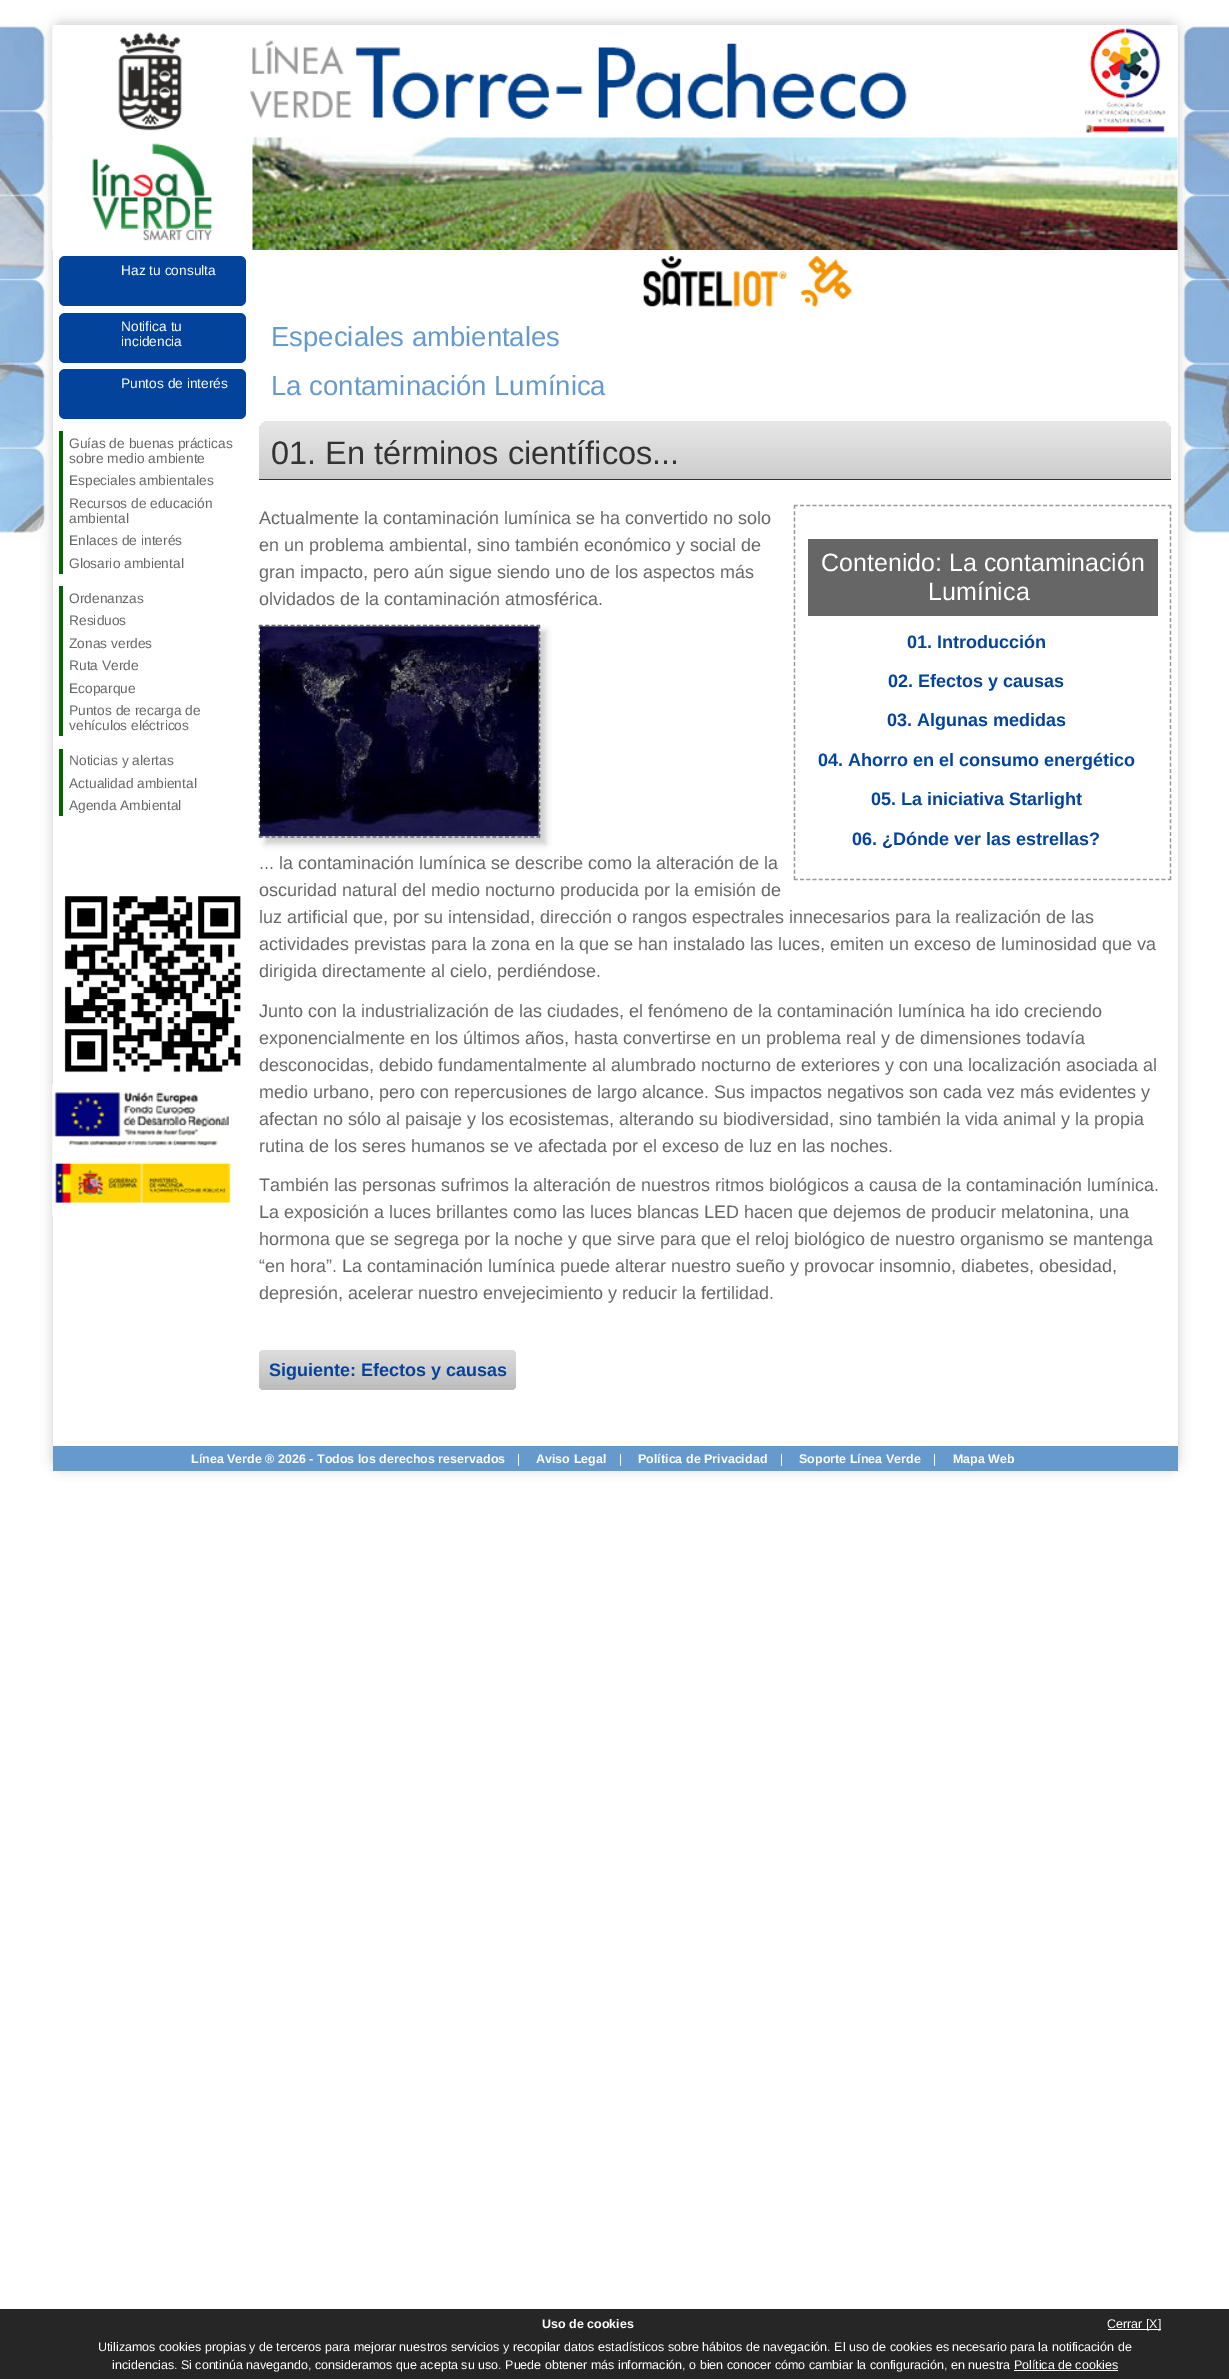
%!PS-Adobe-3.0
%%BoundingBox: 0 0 1229 2379
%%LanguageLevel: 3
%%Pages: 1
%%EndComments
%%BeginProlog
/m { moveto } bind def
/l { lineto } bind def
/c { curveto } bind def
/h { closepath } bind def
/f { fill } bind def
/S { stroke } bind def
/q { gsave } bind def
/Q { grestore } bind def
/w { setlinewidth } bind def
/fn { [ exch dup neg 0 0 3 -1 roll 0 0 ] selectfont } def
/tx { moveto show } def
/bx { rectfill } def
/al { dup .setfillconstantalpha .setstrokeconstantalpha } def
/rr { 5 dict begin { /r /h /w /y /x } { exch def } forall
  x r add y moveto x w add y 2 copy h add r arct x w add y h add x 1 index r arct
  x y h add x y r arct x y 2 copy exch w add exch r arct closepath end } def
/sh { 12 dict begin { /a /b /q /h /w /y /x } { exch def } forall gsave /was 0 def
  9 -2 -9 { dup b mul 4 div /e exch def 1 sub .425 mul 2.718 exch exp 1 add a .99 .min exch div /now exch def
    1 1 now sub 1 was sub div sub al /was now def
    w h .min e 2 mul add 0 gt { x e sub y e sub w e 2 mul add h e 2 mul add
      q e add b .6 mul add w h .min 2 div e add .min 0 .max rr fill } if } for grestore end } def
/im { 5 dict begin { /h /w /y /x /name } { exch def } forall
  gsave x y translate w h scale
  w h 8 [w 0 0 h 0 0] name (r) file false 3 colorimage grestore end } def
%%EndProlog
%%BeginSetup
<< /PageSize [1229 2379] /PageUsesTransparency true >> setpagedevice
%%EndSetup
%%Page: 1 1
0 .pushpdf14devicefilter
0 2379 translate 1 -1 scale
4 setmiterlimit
1 setgray
0 0 1229 2379 bx
(image0.raw) 0 20 1229 520 im
0 setgray
53 23 1125 1446 9 6 0.2 sh
1 setgray
53 25 1125 1446 9 rr f
(image1.raw) 52 25 1126 112 im
(image2.raw) 52 138 161 112 im
(image3.raw) 252 137 926 113 im
(image4.raw) 643 256 209 51 im
0.016 0.263 0.608 setrgbcolor
59 256 187 50 6 rr f
/LiberationSans-Regular 13.75 fn
1 setgray
(Haz tu consulta) 121 275 tx
0.016 0.263 0.608 setrgbcolor
59 313 187 50 6 rr f
1 setgray
(Notifica tu) 121 331 tx
(incidencia) 121 346 tx
0.016 0.263 0.608 setrgbcolor
59 369 187 50 6 rr f
1 setgray
(Puntos de interés) 121 388 tx
0 0.4 0 setrgbcolor
59 431 4 143 bx
0.4 setgray
(Guías de buenas prácticas) 69 448 tx
(sobre medio ambiente) 69 463 tx
(Especiales ambientales) 69 485 tx
(Recursos de educación) 69 508 tx
(ambiental) 69 523 tx
(Enlaces de interés) 69 545 tx
(Glosario ambiental) 69 568 tx
0 0.4 0 setrgbcolor
59 586 4 150 bx
0.4 setgray
(Ordenanzas) 69 603 tx
(Residuos) 69 625 tx
(Zonas verdes) 69 648 tx
(Ruta Verde) 69 670 tx
(Ecoparque) 69 693 tx
(Puntos de recarga de) 69 715 tx
(vehículos eléctricos) 69 730 tx
0 0.4 0 setrgbcolor
59 749 4 67 bx
0.4 setgray
(Noticias y alertas) 69 765 tx
(Actualidad ambiental) 69 788 tx
(Agenda Ambiental) 69 810 tx
(image5.raw) 64 896 177 177 im
(image6.raw) 52 1084 177 66 im
(image7.raw) 52 1150 179 66 im
/LiberationSans-Regular 27.5 fn
0.4 0.6 0.8 setrgbcolor
(Especiales ambientales) 271 346 tx
(La contaminación Lumínica) 271 395 tx
q 269 421 m 1161 421 l 1166.5 421 1171 425.5 1171 431 c 1171 479 l 259 479 l 259 431 l 259 425.5 263.5 421 269 421 c h clip newpath
<< /ShadingType 2 /ColorSpace /DeviceRGB /Coords [715 421 715 479] /Extend [true true] /Function << /FunctionType 2 /Domain [0 1] /C0 [0.91 0.91 0.91] /C1 [0.8 0.8 0.8] /N 1 >> >> shfill Q
0.2 setgray
259 479 912 1 bx
/LiberationSans-Regular 32.5 fn
(01. En términos científicos...) 271 464 tx
/LiberationSans-Regular 18 fn
0.4 setgray
(Actualmente la contaminación lumínica se ha convertido no solo) 259 524 tx
(en un problema ambiental, sino también económico y social de) 259 551 tx
(gran impacto, pero aún sigue siendo uno de los aspectos más) 259 578 tx
(olvidados de la contaminación atmosférica.) 259 605 tx
0.6 setgray
1.2 w
[3.75 2.48] 0 setdash
794 505.5 m 1171 505.5 l S
[3.75 2.54] 0 setdash
1170.5 505 m 1170.5 880 l S
[3.75 2.48] 0 setdash
794 879.5 m 1171 879.5 l S
[3.75 2.54] 0 setdash
794.5 505 m 794.5 880 l S
0.4 setgray
808 539 350 77 bx
/LiberationSans-Regular 25 fn
1 setgray
(Contenido: La contaminación) 821 571 tx
(Lumínica) 928 600 tx
/LiberationSans-Bold 18 fn
0.016 0.263 0.608 setrgbcolor
(01. Introducción) 907 648 tx
(02. Efectos y causas) 888 687 tx
(03. Algunas medidas) 887 726 tx
(04. Ahorro en el consumo energético) 818 766 tx
(05. La iniciativa Starlight) 871 805 tx
(06. ¿Dónde ver las estrellas?) 852 845 tx
0.8 setgray
265 631 281 213 0 3 1 sh
0.4 setgray
[3.75 2.56] 0 setdash
259 625.5 m 540 625.5 l S
[3.75 2.58] 0 setdash
539.5 625 m 539.5 837.5 l S
[3.75 2.56] 0 setdash
259 837 m 540 837 l S
[3.75 2.58] 0 setdash
259.5 625 m 259.5 837.5 l S
(image8.raw) 260 626 279 211 im
/LiberationSans-Regular 18 fn
(... la contaminación lumínica se describe como la alteración de la) 259 869 tx
(oscuridad natural del medio nocturno producida por la emisión de) 259 896 tx
(luz artificial que, por su intensidad, dirección o rangos espectrales innecesarios para la realización de las) 259 923 tx
(actividades previstas para la zona en la que se han instalado las luces, emiten un exceso de luminosidad que va) 259 950 tx
(dirigida directamente al cielo, perdiéndose.) 259 977 tx
(Junto con la industrialización de las ciudades, el fenómeno de la contaminación lumínica ha ido creciendo) 259 1017 tx
(exponencialmente en los últimos años, hasta convertirse en un problema real y de dimensiones todavía) 259 1044 tx
(desconocidas, debido fundamentalmente al alumbrado nocturno de exteriores y con una localización asociada al) 259 1071 tx
(medio urbano, pero con repercusiones de largo alcance. Sus impactos negativos son cada vez más evidentes y) 259 1098 tx
(afectan no sólo al paisaje y los ecosistemas, alterando su biodiversidad, sino también la vida animal y la propia) 259 1125 tx
(rutina de los seres humanos se ve afectada por el exceso de luz en las noches.) 259 1152 tx
(También las personas sufrimos la alteración de nuestros ritmos biológicos a causa de la contaminación lumínica.) 259 1191 tx
(La exposición a luces brillantes como las luces blancas LED hacen que dejemos de producir melatonina, una) 259 1218 tx
(hormona que se segrega por la noche y que sirve para que el reloj biológico de nuestro organismo se mantenga) 259 1245 tx
(“en hora”. La contaminación lumínica puede alterar nuestro sueño y provocar insomnio, diabetes, obesidad,) 259 1272 tx
(depresión, acelerar nuestro envejecimiento y reducir la fertilidad.) 259 1299 tx
q 259 1350 257 40 6 rr clip newpath
<< /ShadingType 2 /ColorSpace /DeviceRGB /Coords [388 1350 388 1390] /Extend [true true] /Function << /FunctionType 2 /Domain [0 1] /C0 [0.871 0.871 0.871] /C1 [0.737 0.737 0.737] /N 1 >> >> shfill Q
/LiberationSans-Bold 18 fn
0.016 0.263 0.608 setrgbcolor
(Siguiente: Efectos y causas) 269 1376 tx
0.4 0.6 0.8 setrgbcolor
53 1446 1125 25 bx
/LiberationSans-Bold 12.5 fn
1 setgray
(Línea Verde ® 2026 - Todos los derechos reservados) 191 1463 tx
/LiberationSans-Regular 12.5 fn
(|) 517 1463 tx
/LiberationSans-Bold 12.5 fn
(Aviso Legal) 536 1463 tx
/LiberationSans-Regular 12.5 fn
(|) 619 1463 tx
/LiberationSans-Bold 12.5 fn
(Política de Privacidad) 638 1463 tx
/LiberationSans-Regular 12.5 fn
(|) 780 1463 tx
/LiberationSans-Bold 12.5 fn
(Soporte Línea Verde) 799 1463 tx
/LiberationSans-Regular 12.5 fn
(|) 933 1463 tx
/LiberationSans-Bold 12.5 fn
(Mapa Web) 953 1463 tx
0.149 setgray
0 2309 1229 70 bx
1 setgray
(Uso de cookies) 542 2328 tx
1108 2329 53 1 bx
/LiberationSans-Regular 12.5 fn
(Cerrar [X]) 1107 2328 tx
(Utilizamos cookies propias y de terceros para mejorar nuestros servicios y recopilar datos estadísticos sobre hábitos de navegación. El uso de cookies es necesario para la notificación de) 98 2351 tx
(incidencias. Si continúa navegando, consideramos que acepta su uso. Puede obtener más información, o bien conocer cómo cambiar la configuración, en nuestra Política de cookies) 112 2369 tx
1014 2370 104 1 bx
.poppdf14devicefilter showpage
%%EOF
